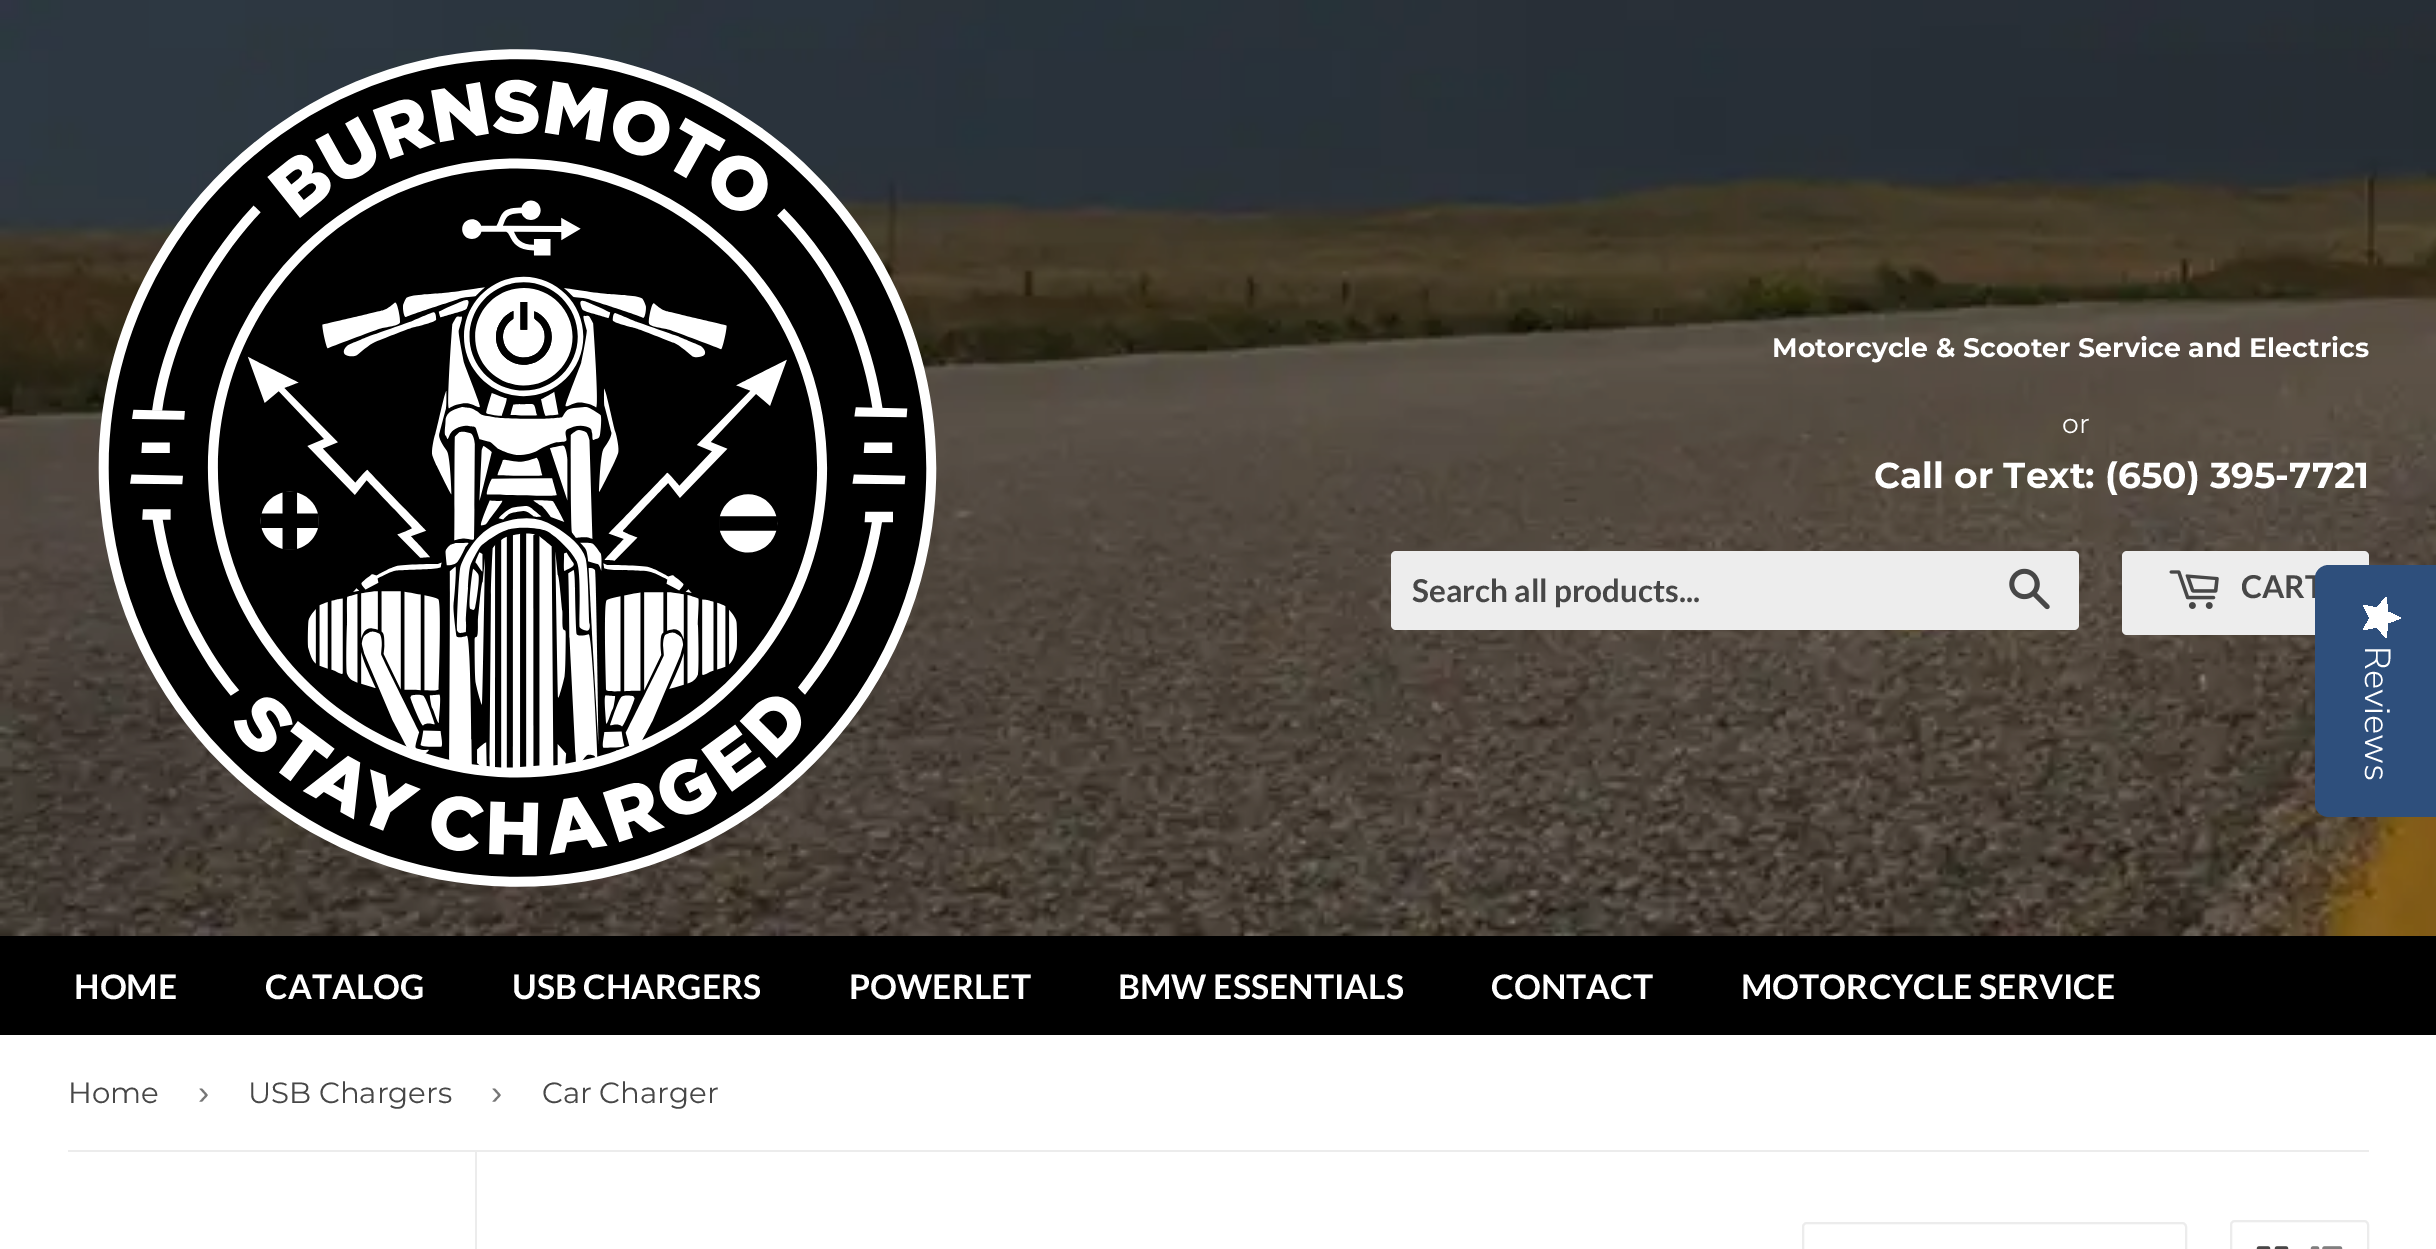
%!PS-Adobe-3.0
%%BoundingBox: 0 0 2436 1249
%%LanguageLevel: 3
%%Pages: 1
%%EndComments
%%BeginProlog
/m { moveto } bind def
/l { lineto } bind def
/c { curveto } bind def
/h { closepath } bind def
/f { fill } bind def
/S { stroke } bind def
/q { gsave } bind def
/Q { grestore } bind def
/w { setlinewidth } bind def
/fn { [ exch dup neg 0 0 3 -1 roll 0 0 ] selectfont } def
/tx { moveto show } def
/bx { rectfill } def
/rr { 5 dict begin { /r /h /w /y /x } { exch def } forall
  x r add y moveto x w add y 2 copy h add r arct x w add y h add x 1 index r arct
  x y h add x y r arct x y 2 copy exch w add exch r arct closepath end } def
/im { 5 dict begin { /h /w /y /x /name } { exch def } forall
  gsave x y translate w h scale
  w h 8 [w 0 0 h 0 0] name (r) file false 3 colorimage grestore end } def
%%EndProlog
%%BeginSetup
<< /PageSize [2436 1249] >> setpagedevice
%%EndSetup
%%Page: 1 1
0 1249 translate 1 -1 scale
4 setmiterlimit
1 setgray
0 0 2436 1249 bx
(image0.raw) 0 0 2436 936 im
(image1.raw) 98 49 839 838 im
/Montserrat-Bold 26.75 fn
(Motorcycle & Scooter Service and Electrics) 1772 357 tx
/Montserrat-Regular 26.75 fn
(or) 2062 433 tx
/Montserrat-Bold 36 fn
(Call or Text: \(650\) 395-7721) 1874 488 tx
0.929 setgray
1391 551 688 79 5 rr f
/Lato-Bold 31.5 fn
0.278 setgray
(Search all products...) 1412 602 tx
(image2.raw) 2009 568 41 42 im
0.929 setgray
2122 551 247 84 5 rr f
(image3.raw) 2169 570 50 39 im
0.278 setgray
(CART) 2241 598 tx
0 setgray
0 936 2436 99 bx
/Lato-Bold 33.75 fn
1 setgray
(HOME) 74 999 tx
(CATALOG) 265 999 tx
(USB CHARGERS) 512 999 tx
(POWERLET) 849 999 tx
(BMW ESSENTIALS) 1118 999 tx
(CONTACT) 1491 999 tx
(MOTORCYCLE SERVICE) 1741 999 tx
0.18 0.31 0.486 setrgbcolor
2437 565 m 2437 817 l 2329 817 l 2321 817 2315 811 2315 804 c 2315 578 l 2315 571 2321 565 2329 565 c h f
q 2370 618 m 2363 630 l 2377 627 l 2386 638 l 2388 623 l 2401 618 l 2388 612 l 2386 597 l 2377 608 l 2363 605 l h clip newpath
<< /ShadingType 2 /ColorSpace /DeviceRGB /Coords [2401 597 2401 638] /Extend [true true] /Function << /FunctionType 2 /Domain [0 1] /C0 [1 1 1] /C1 [1 1 1] /N 1 >> >> shfill Q
/NunitoSans-Light 36 fn
1 setgray
q 2365 646 translate 90 rotate 0 0 m (Reviews) show Q
0.925 setgray
68 1150 2301 2 bx
/Montserrat-Regular 29.25 fn
0.278 setgray
(Home) 68 1103 tx
/LiberationSans-Regular 33.75 fn
0.463 setgray
(›) 198 1104 tx
/Montserrat-Regular 29.25 fn
0.278 setgray
(USB Chargers) 248 1103 tx
/LiberationSans-Regular 33.75 fn
0.463 setgray
(›) 491 1104 tx
/Montserrat-Regular 29.25 fn
0.278 setgray
(Car Charger) 542 1103 tx
0.925 setgray
475 1152 2 97 bx
2 w
1803 1223 383 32 4 rr S
2231 1221 137 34 4 rr S
(image4.raw) 2256 1246 33 3 im
(image5.raw) 2310 1246 33 3 im
showpage
%%EOF
